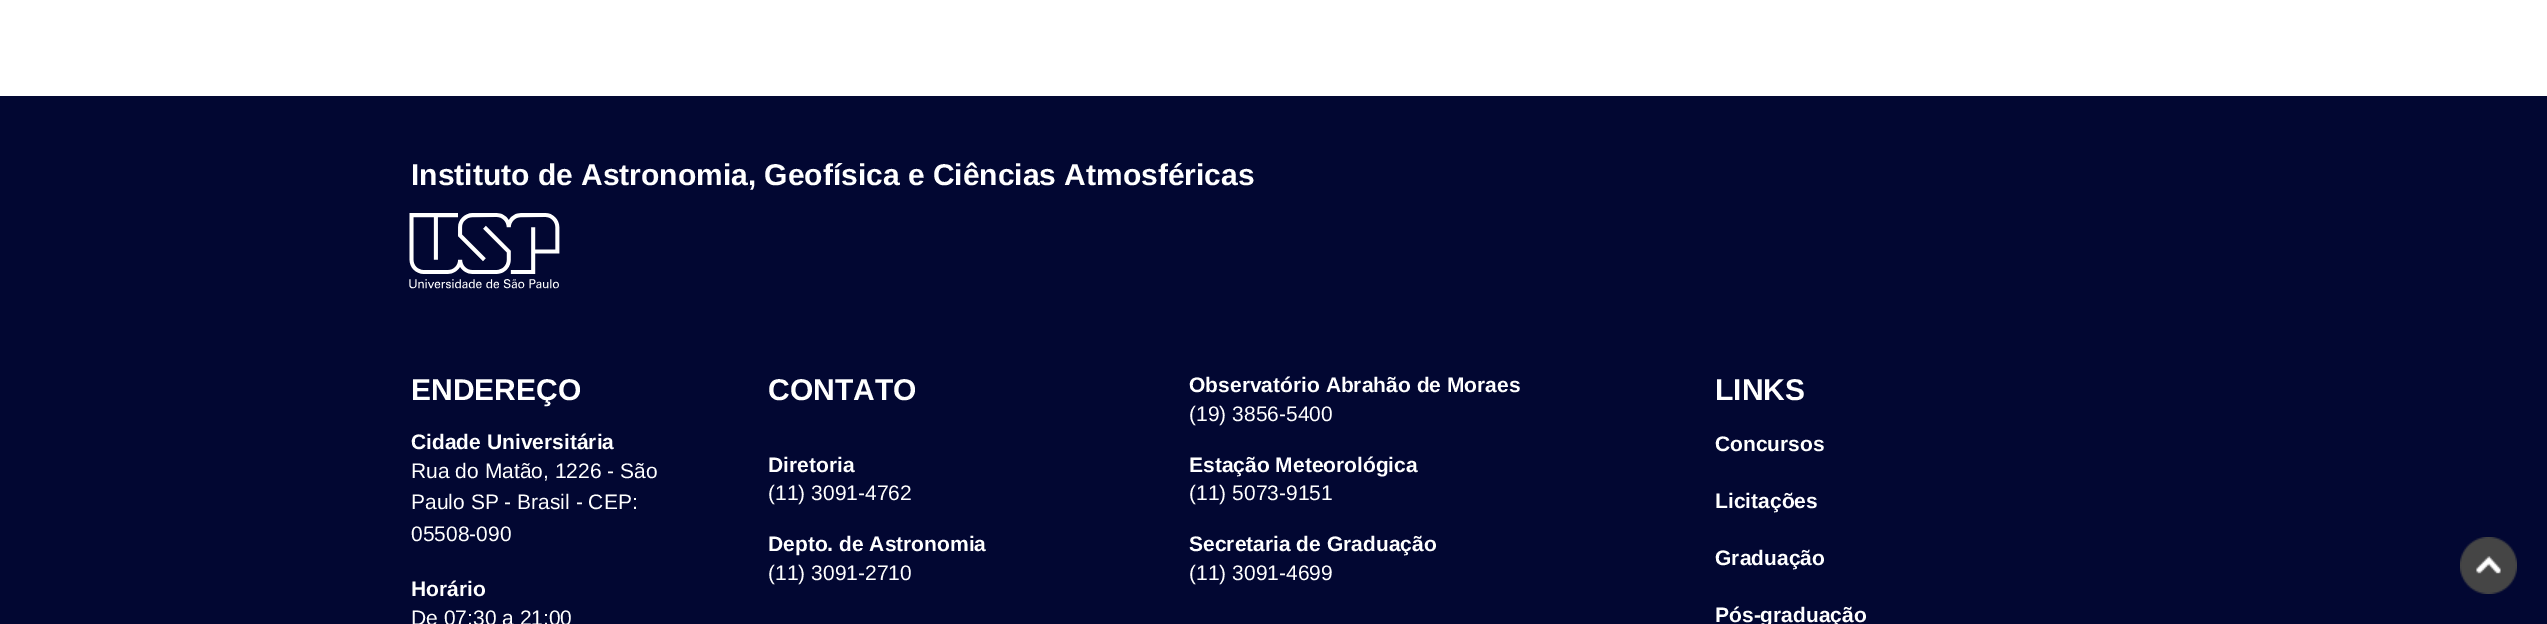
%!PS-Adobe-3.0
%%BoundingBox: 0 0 2547 624
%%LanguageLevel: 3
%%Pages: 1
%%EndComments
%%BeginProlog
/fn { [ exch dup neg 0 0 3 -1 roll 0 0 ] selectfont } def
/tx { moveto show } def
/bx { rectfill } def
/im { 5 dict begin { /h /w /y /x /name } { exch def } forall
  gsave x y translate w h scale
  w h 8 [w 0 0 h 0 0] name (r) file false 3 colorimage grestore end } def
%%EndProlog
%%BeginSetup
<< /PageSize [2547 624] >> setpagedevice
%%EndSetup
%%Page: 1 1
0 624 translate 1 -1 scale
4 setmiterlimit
1 setgray
0 0 2547 624 bx
0.008 0.027 0.196 setrgbcolor
0 96 2547 528 bx
/LiberationSans-Bold 30 fn
1 setgray
(Instituto de Astronomia, Geofísica e Ciências Atmosféricas) 411 185 tx
(image0.raw) 409 213 151 76 im
(ENDEREÇO) 411 400 tx
/LiberationSans-Bold 21 fn
(Cidade Universitária) 411 449 tx
/LiberationSans-Regular 21 fn
(Rua do Matão, 1226 - São) 411 478 tx
(Paulo SP - Brasil - CEP:) 411 509 tx
(05508-090) 411 541 tx
/LiberationSans-Bold 21 fn
(Horário) 411 596 tx
/LiberationSans-Regular 21 fn
(De 07:30 a 21:00) 411 625 tx
/LiberationSans-Bold 30 fn
(CONTATO) 768 400 tx
/LiberationSans-Bold 21 fn
(Observatório Abrahão de Moraes) 1189 392 tx
/LiberationSans-Regular 21 fn
(\(19\) 3856-5400) 1189 421 tx
/LiberationSans-Bold 21 fn
(Diretoria) 768 472 tx
/LiberationSans-Regular 21 fn
(\(11\) 3091-4762) 768 500 tx
/LiberationSans-Bold 21 fn
(Estação Meteorológica) 1189 472 tx
/LiberationSans-Regular 21 fn
(\(11\) 5073-9151) 1189 500 tx
/LiberationSans-Bold 21 fn
(Depto. de Astronomia) 768 551 tx
/LiberationSans-Regular 21 fn
(\(11\) 3091-2710) 768 580 tx
/LiberationSans-Bold 21 fn
(Secretaria de Graduação) 1189 551 tx
/LiberationSans-Regular 21 fn
(\(11\) 3091-4699) 1189 580 tx
/LiberationSans-Bold 30 fn
(LINKS) 1715 400 tx
/LiberationSans-Bold 21 fn
(Concursos) 1715 451 tx
(Licitações) 1715 508 tx
(Graduação) 1715 565 tx
(Pós-graduação) 1715 622 tx
(image1.raw) 2460 537 57 57 im
showpage
%%EOF
